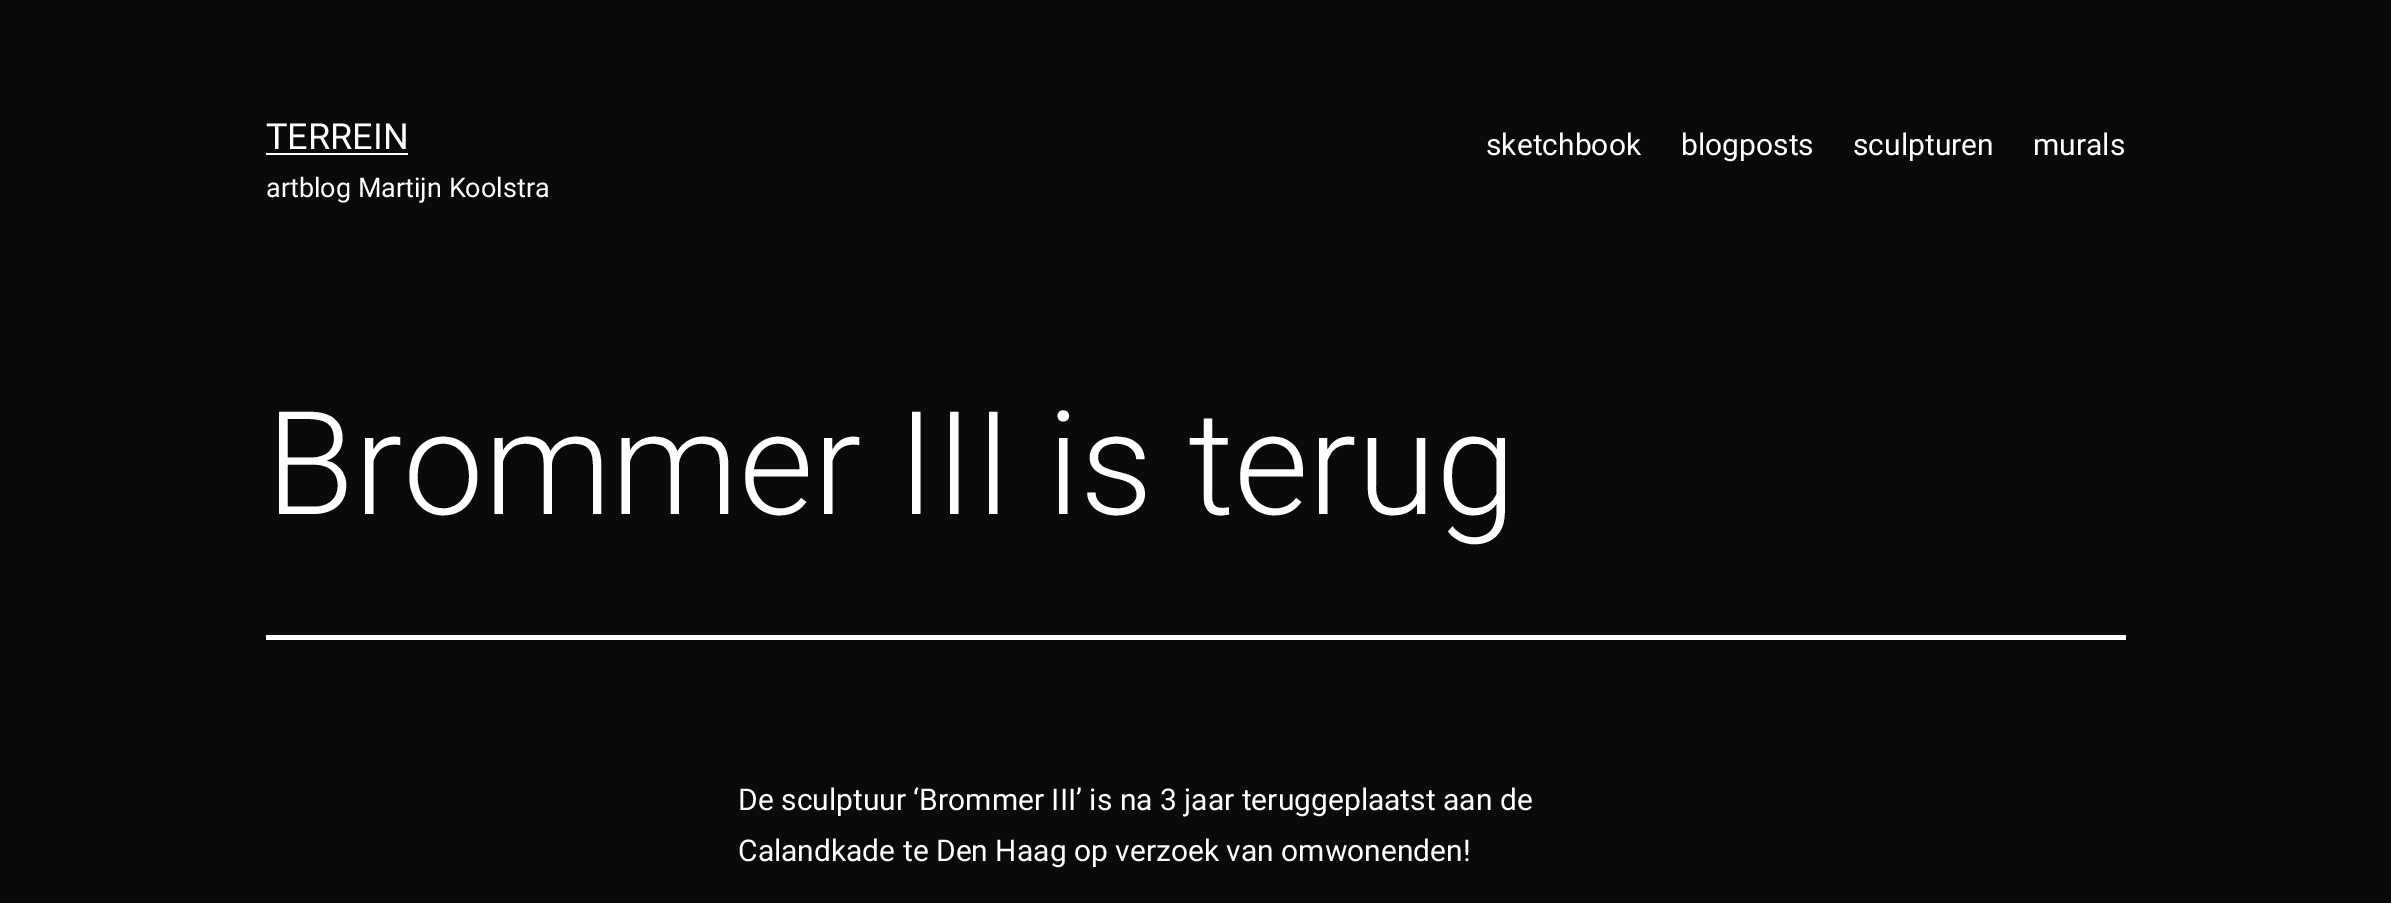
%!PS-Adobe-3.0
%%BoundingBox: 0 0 2391 903
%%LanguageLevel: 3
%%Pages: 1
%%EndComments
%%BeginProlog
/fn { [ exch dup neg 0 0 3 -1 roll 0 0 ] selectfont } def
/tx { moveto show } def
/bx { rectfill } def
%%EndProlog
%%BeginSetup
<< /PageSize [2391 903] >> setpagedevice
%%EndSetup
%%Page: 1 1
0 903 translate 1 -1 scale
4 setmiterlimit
0.039 setgray
0 0 2391 903 bx
/Roboto-Regular 36 fn
1 setgray
(TERREIN) 266 149 tx
266 153 142 2 bx
/Roboto-Regular 27 fn
(artblog Martijn Koolstra) 266 197 tx
/Roboto-Regular 30 fn
(sketchbook) 1486 155 tx
(blogposts) 1681 155 tx
(sculpturen) 1853 155 tx
(murals) 2033 155 tx
266 635 1860 5 bx
/Roboto-Light 144 fn
(Brommer III is terug) 266 514 tx
/Roboto-Regular 30 fn
(De sculptuur ‘Brommer III’ is na 3 jaar teruggeplaatst aan de) 738 810 tx
(Calandkade te Den Haag op verzoek van omwonenden!) 738 861 tx
showpage
%%EOF
